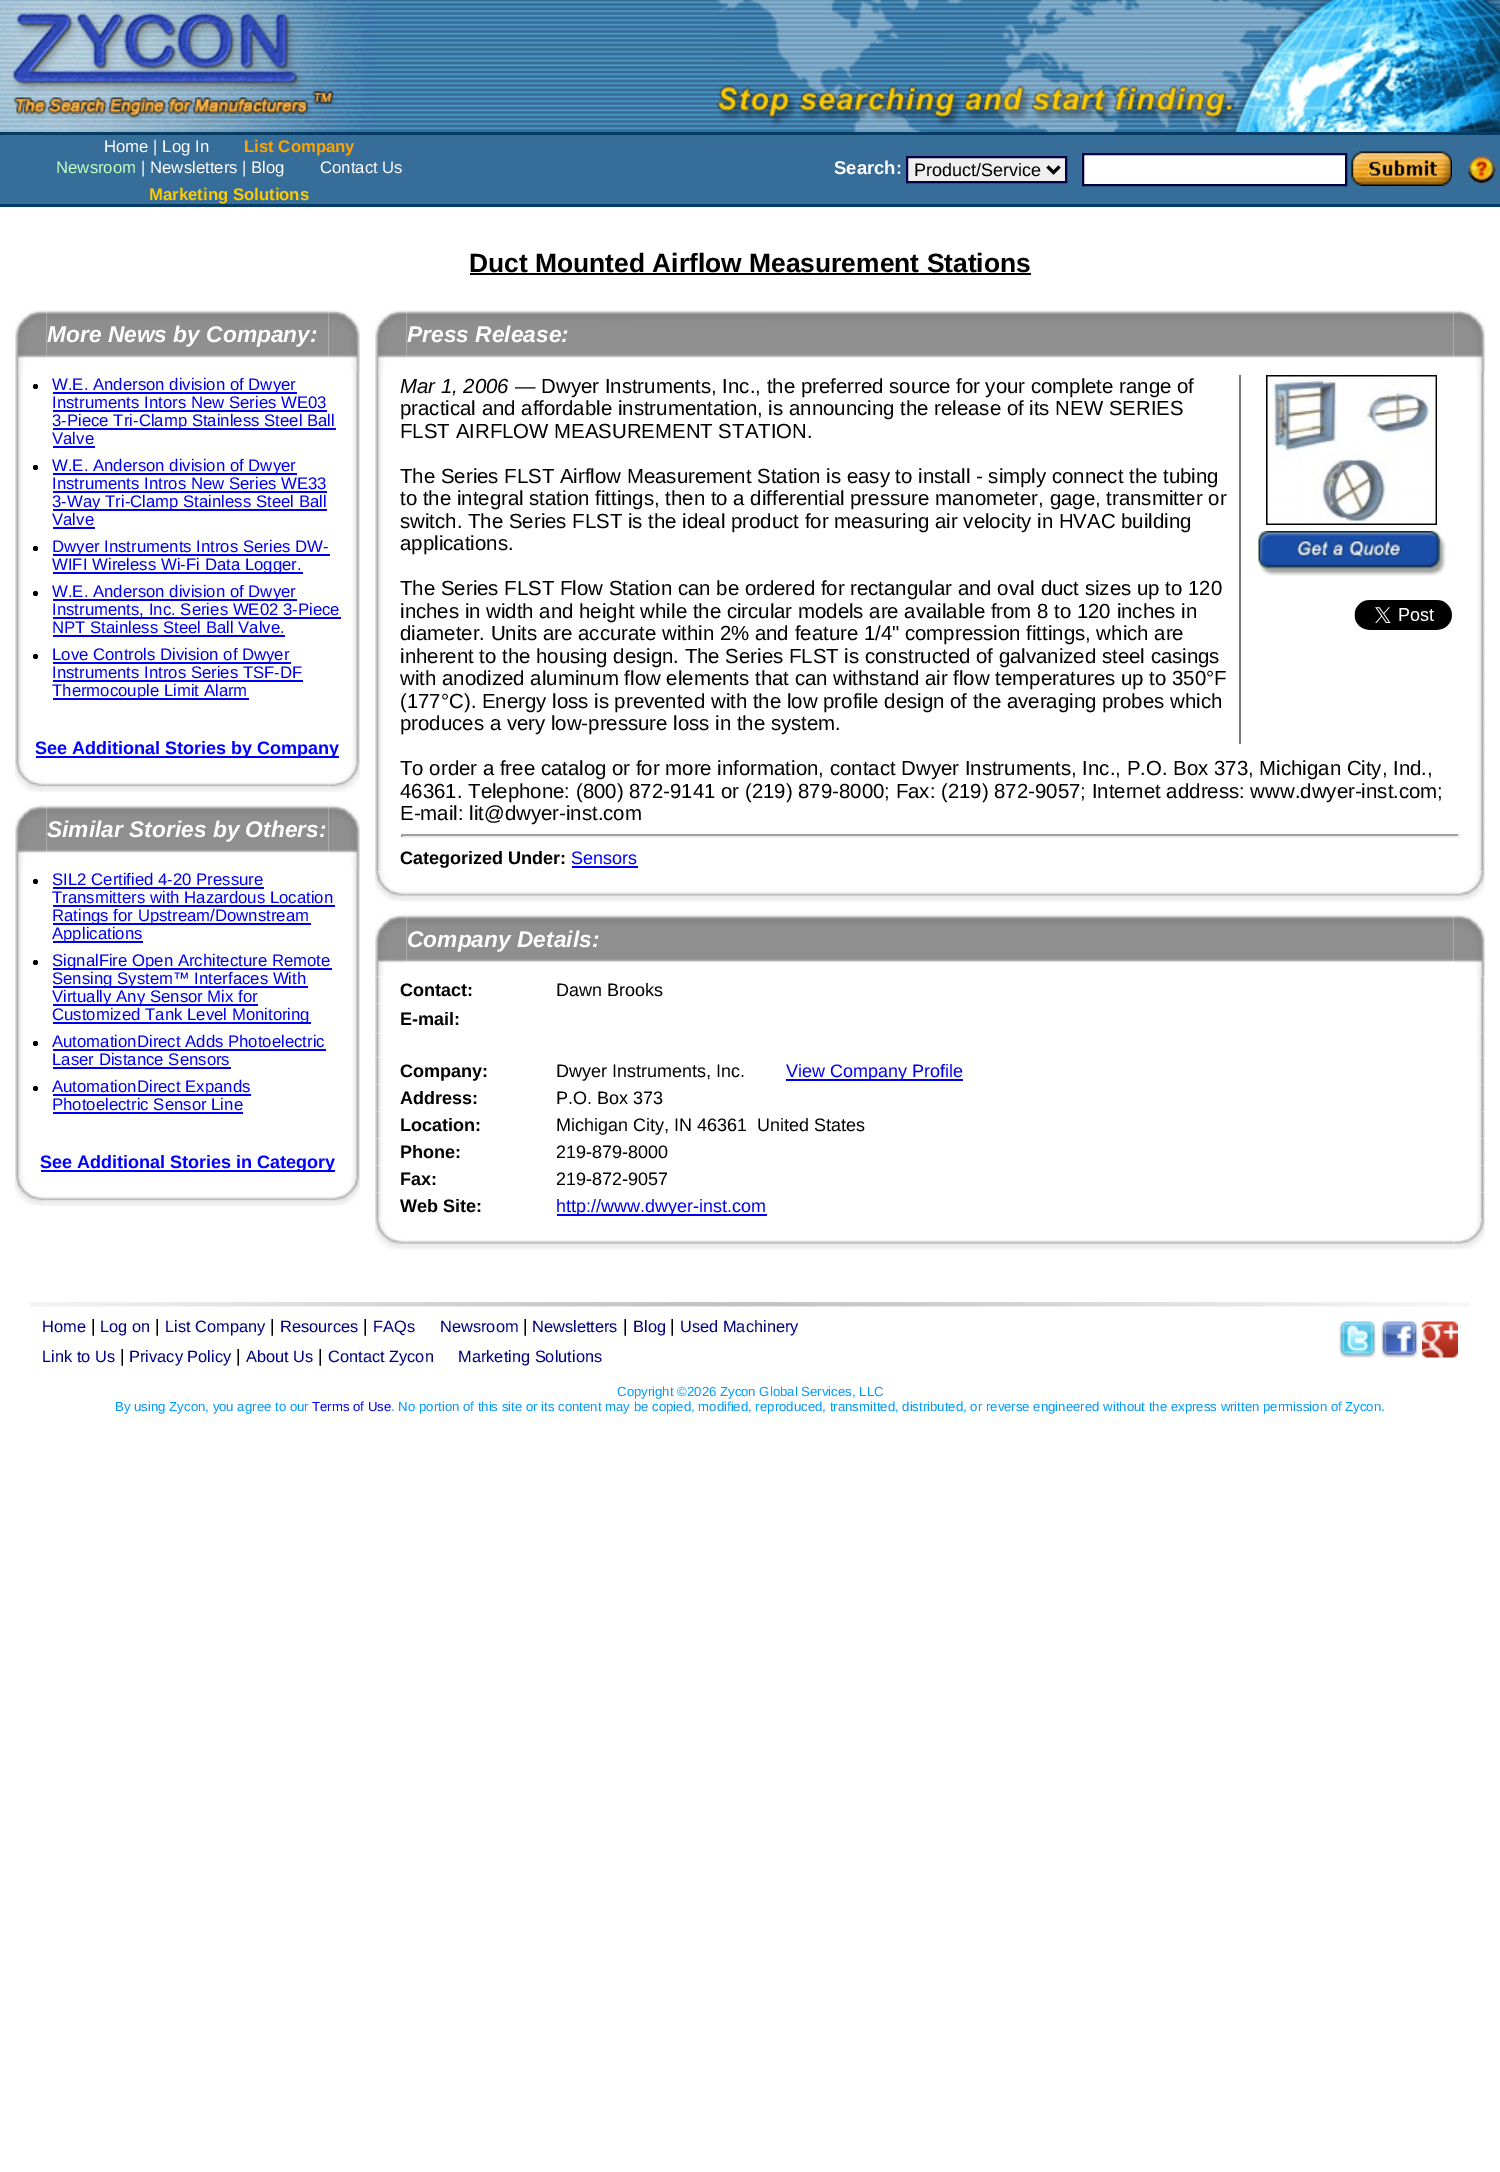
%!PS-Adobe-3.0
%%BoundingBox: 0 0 1500 2172
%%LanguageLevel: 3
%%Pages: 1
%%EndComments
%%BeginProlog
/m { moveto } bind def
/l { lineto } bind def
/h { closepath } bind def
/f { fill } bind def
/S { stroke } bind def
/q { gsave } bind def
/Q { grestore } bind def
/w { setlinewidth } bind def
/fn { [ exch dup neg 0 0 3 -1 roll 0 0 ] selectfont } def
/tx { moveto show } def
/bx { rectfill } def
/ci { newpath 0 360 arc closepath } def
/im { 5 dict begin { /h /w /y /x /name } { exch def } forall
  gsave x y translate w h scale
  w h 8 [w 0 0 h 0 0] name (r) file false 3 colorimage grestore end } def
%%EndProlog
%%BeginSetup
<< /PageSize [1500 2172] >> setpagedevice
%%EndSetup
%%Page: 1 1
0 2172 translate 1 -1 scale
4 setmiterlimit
1 setgray
0 0 1500 2172 bx
(image0.raw) 375 0 341 132 im
(image1.raw) 0 0 375 132 im
(image2.raw) 716 0 784 132 im
0.216 0.427 0.6 setrgbcolor
0 135 1500 69 bx
0.02 0.235 0.396 setrgbcolor
0 132 1500 3 bx
0 204 1500 3 bx
/LiberationSans-Regular 16.75 fn
1 setgray
(Home | Log In) 104 152 tx
/LiberationSans-Bold 16.75 fn
1 0.647 0 setrgbcolor
(List Company) 244 152 tx
/LiberationSans-Bold 18.5 fn
1 setgray
(Search:) 834 174 tx
0.937 setgray
907 157 m 1066 157 l 1066 182 l 907 182 l h q f Q
0 0 0.267 setrgbcolor
2 w
S
0 setgray
3 w
1047.5 166.5 m 1053.5 172.5 l 1059.5 166.5 l S
/LiberationSans-Regular 18 fn
(Product/Service) 914 176 tx
1 setgray
1083 154 m 1346 154 l 1346 185 l 1083 185 l h q f Q
0 0 0.267 setrgbcolor
2 w
S
(image3.raw) 1351 151 101 35 im
(image4.raw) 1468 156 28 27 im
/LiberationSans-Regular 16.75 fn
0.753 1 0.753 setrgbcolor
(Newsroom) 56 173 tx
1 setgray
(| Newsletters | Blog) 141 173 tx
(Contact Us) 320 173 tx
/LiberationSans-Bold 16.75 fn
1 0.8 0 setrgbcolor
(Marketing Solutions) 149 200 tx
/LiberationSans-Bold 26.4 fn
0 setgray
(Duct Mounted Airflow Measurement Stations) 469 272 tx
470 273 561 2 bx
(image6.raw) 46 310 283 48 im
(image5.raw) 15 310 32 62 im
/LiberationSans-BoldItalic 22.75 fn
1 setgray
(More News by Company:) 47 342 tx
(image7.raw) 328 310 32 62 im
(image8.raw) 15 372 8 339 im
0 setgray
35.5 386.5 2.5 ci f
0 0 0.933 setrgbcolor
53 392 244 2 bx
/LiberationSans-Regular 16.75 fn
(W.E. Anderson division of Dwyer) 52 390 tx
(Instruments Intors New Series WE03) 52 408 tx
53 410 274 2 bx
53 428 283 2 bx
(3-Piece Tri-Clamp Stainless Steel Ball) 52 426 tx
(Valve) 52 444 tx
53 446 42 2 bx
0 setgray
35.5 467.5 2.5 ci f
0 0 0.933 setrgbcolor
53 473 244 2 bx
(W.E. Anderson division of Dwyer) 52 471 tx
(Instruments Intros New Series WE33) 52 489 tx
53 491 274 2 bx
53 509 274 2 bx
(3-Way Tri-Clamp Stainless Steel Ball) 52 507 tx
(Valve) 52 525 tx
53 527 42 2 bx
0 setgray
35.5 548.5 2.5 ci f
0 0 0.933 setrgbcolor
53 554 277 2 bx
(Dwyer Instruments Intros Series DW-) 52 552 tx
53 572 250 2 bx
(WIFI Wireless Wi-Fi Data Logger.) 52 570 tx
0 setgray
35.5 593.5 2.5 ci f
0 0 0.933 setrgbcolor
53 599 244 2 bx
(W.E. Anderson division of Dwyer) 52 597 tx
53 617 288 2 bx
(Instruments, Inc. Series WE02 3-Piece) 52 615 tx
(NPT Stainless Steel Ball Valve.) 52 633 tx
53 635 232 2 bx
0 setgray
35.5 656.5 2.5 ci f
0 0 0.933 setrgbcolor
53 662 238 2 bx
(Love Controls Division of Dwyer) 52 660 tx
(Instruments Intros Series TSF-DF) 52 678 tx
53 680 250 2 bx
53 698 196 2 bx
(Thermocouple Limit Alarm) 52 696 tx
(image9.raw) 352 372 8 339 im
(image10.raw) 15 711 8 24 im
(image11.raw) 352 711 8 24 im
(image12.raw) 15 735 8 27 im
0 0 1 setrgbcolor
36 756 303 2 bx
/LiberationSans-Bold 18 fn
(See Additional Stories by Company) 35 754 tx
(image13.raw) 352 735 8 27 im
(image15.raw) 46 782 283 10 im
(image14.raw) 15 762 32 30 im
(image16.raw) 328 762 32 30 im
(image17.raw) 46 805 283 48 im
(image5.raw) 15 805 32 62 im
/LiberationSans-BoldItalic 22.75 fn
1 setgray
(Similar Stories by Others:) 47 837 tx
(image7.raw) 328 805 32 62 im
(image18.raw) 15 867 8 258 im
0 setgray
35.5 881.5 2.5 ci f
/LiberationSans-Regular 16.75 fn
0 0 0.933 setrgbcolor
(SIL2 Certified 4-20 Pressure) 52 885 tx
53 887 211 2 bx
(Transmitters with Hazardous Location) 52 903 tx
53 905 282 2 bx
53 923 258 2 bx
(Ratings for Upstream/Downstream) 52 921 tx
53 941 90 2 bx
(Applications) 52 939 tx
0 setgray
35.5 962.5 2.5 ci f
0 0 0.933 setrgbcolor
53 968 279 2 bx
(SignalFire Open Architecture Remote) 52 966 tx
53 986 255 2 bx
(Sensing System™ Interfaces With) 52 984 tx
53 1004 205 2 bx
(Virtually Any Sensor Mix for) 52 1002 tx
53 1022 258 2 bx
(Customized Tank Level Monitoring) 52 1020 tx
0 setgray
35.5 1043.5 2.5 ci f
0 0 0.933 setrgbcolor
(AutomationDirect Adds Photoelectric) 52 1047 tx
53 1049 273 2 bx
(Laser Distance Sensors) 52 1065 tx
53 1067 178 2 bx
0 setgray
35.5 1088.5 2.5 ci f
0 0 0.933 setrgbcolor
53 1094 198 2 bx
(AutomationDirect Expands) 52 1092 tx
(Photoelectric Sensor Line) 52 1110 tx
53 1112 190 2 bx
(image19.raw) 352 867 8 258 im
(image10.raw) 15 1125 8 24 im
(image11.raw) 352 1125 8 24 im
(image12.raw) 15 1149 8 27 im
0 0 1 setrgbcolor
41 1170 294 2 bx
/LiberationSans-Bold 18 fn
(See Additional Stories in Category) 40 1168 tx
(image13.raw) 352 1149 8 27 im
(image20.raw) 46 1196 283 10 im
(image14.raw) 15 1176 32 30 im
(image16.raw) 328 1176 32 30 im
(image22.raw) 406 310 1048 48 im
(image21.raw) 375 310 32 62 im
/LiberationSans-BoldItalic 22.75 fn
1 setgray
(Press Release:) 407 342 tx
(image23.raw) 1453 310 32 62 im
(image24.raw) 375 372 8 456 im
/LiberationSans-Italic 20.4 fn
0 setgray
(Mar 1, 2006) 400 393 tx
/LiberationSans-Regular 20.4 fn
(— Dwyer Instruments, Inc., the preferred source for your complete range of) 515 393 tx
0.467 setgray
1239 375 2 369 bx
(image25.raw) 1266 375 171 150 im
(image26.raw) 1258 531 188 45 im
(image27.raw) 1354 600 98 30 im
0 setgray
(practical and affordable instrumentation, is announcing the release of its NEW SERIES) 400 415 tx
(FLST AIRFLOW MEASUREMENT STATION.) 400 438 tx
(The Series FLST Airflow Measurement Station is easy to install - simply connect the tubing) 400 483 tx
(to the integral station fittings, then to a differential pressure manometer, gage, transmitter or) 400 505 tx
(switch. The Series FLST is the ideal product for measuring air velocity in HVAC building) 400 528 tx
(applications.) 400 550 tx
(The Series FLST Flow Station can be ordered for rectangular and oval duct sizes up to 120) 400 595 tx
(inches in width and height while the circular models are available from 8 to 120 inches in) 400 618 tx
(diameter. Units are accurate within 2% and feature 1/4" compression fittings, which are) 400 640 tx
(inherent to the housing design. The Series FLST is constructed of galvanized steel casings) 400 663 tx
(with anodized aluminum flow elements that can withstand air flow temperatures up to 350°F) 400 685 tx
(\(177°C\). Energy loss is prevented with the low profile design of the averaging probes which) 400 708 tx
(produces a very low-pressure loss in the system.) 400 730 tx
(To order a free catalog or for more information, contact Dwyer Instruments, Inc., P.O. Box 373, Michigan City, Ind.,) 400 775 tx
(46361. Telephone: \(800\) 872-9141 or \(219\) 879-8000; Fax: \(219\) 872-9057; Internet address: www.dwyer-inst.com;) 400 798 tx
(E-mail: lit@dwyer-inst.com) 400 820 tx
(image28.raw) 1477 372 8 456 im
(image29.raw) 375 828 8 44 im
0.624 setgray
401 834 1059 2 bx
0.933 setgray
1458 834 2 3 bx
401 836 1059 2 bx
0.624 setgray
401 834 2 3 bx
(image30.raw) 1477 828 8 44 im
/LiberationSans-Bold 18 fn
0 setgray
(Categorized Under:) 400 864 tx
/LiberationSans-Regular 18 fn
0 0 0.933 setrgbcolor
(Sensors) 571 864 tx
572 866 66 2 bx
(image32.raw) 406 892 1048 10 im
(image31.raw) 375 871 32 31 im
(image33.raw) 1453 871 32 31 im
(image35.raw) 406 914 1048 48 im
(image37.raw) 375 976 8 28 im
(image34.raw) 375 914 32 63 im
/LiberationSans-BoldItalic 22.75 fn
1 setgray
(Company Details:) 407 947 tx
(image38.raw) 1477 976 8 28 im
(image36.raw) 1453 914 32 63 im
/LiberationSans-Bold 18 fn
0 setgray
(Contact:) 400 996 tx
/LiberationSans-Regular 18 fn
(Dawn Brooks) 556 996 tx
(image39.raw) 375 1003 8 31 im
/LiberationSans-Bold 18 fn
(E-mail:) 400 1025 tx
(image40.raw) 1477 1003 8 31 im
(image41.raw) 375 1033 8 25 im
(image42.raw) 1477 1033 8 25 im
(image43.raw) 375 1057 8 28 im
(Company:) 400 1077 tx
/LiberationSans-Regular 18 fn
(Dwyer Instruments, Inc.) 556 1077 tx
0 0 0.933 setrgbcolor
786 1079 177 2 bx
(View Company Profile) 786 1077 tx
(image44.raw) 1477 1057 8 28 im
(image43.raw) 375 1084 8 28 im
/LiberationSans-Bold 18 fn
0 setgray
(Address:) 400 1104 tx
/LiberationSans-Regular 18 fn
(P.O. Box 373) 556 1104 tx
(image44.raw) 1477 1084 8 28 im
(image43.raw) 375 1111 8 28 im
/LiberationSans-Bold 18 fn
(Location:) 400 1131 tx
/LiberationSans-Regular 18 fn
(Michigan City, IN 46361) 556 1131 tx
(United States) 757 1131 tx
(image44.raw) 1477 1111 8 28 im
(image43.raw) 375 1138 8 28 im
/LiberationSans-Bold 18 fn
(Phone:) 400 1158 tx
/LiberationSans-Regular 18 fn
(219-879-8000) 556 1158 tx
(image44.raw) 1477 1138 8 28 im
(image43.raw) 375 1165 8 28 im
/LiberationSans-Bold 18 fn
(Fax:) 400 1185 tx
/LiberationSans-Regular 18 fn
(219-872-9057) 556 1185 tx
(image44.raw) 1477 1165 8 28 im
(image43.raw) 375 1192 8 28 im
/LiberationSans-Bold 18 fn
(Web Site:) 400 1212 tx
0 0 0.933 setrgbcolor
557 1214 210 2 bx
/LiberationSans-Regular 18 fn
(http://www.dwyer-inst.com) 556 1212 tx
(image44.raw) 1477 1192 8 28 im
(image45.raw) 406 1240 1048 10 im
(image31.raw) 375 1219 32 31 im
(image33.raw) 1453 1219 32 31 im
(image46.raw) 30 1302 1440 5 im
/LiberationSans-Regular 16.4 fn
0 0 0.502 setrgbcolor
(Home) 42 1332 tx
/LiberationSans-Regular 18 fn
0 setgray
(|) 91 1332 tx
/LiberationSans-Regular 16.4 fn
0 0 0.502 setrgbcolor
(Log on) 100 1332 tx
/LiberationSans-Regular 18 fn
0 setgray
(|) 155 1332 tx
/LiberationSans-Regular 16.4 fn
0 0 0.502 setrgbcolor
(List Company) 165 1332 tx
/LiberationSans-Regular 18 fn
0 setgray
(|) 270 1332 tx
/LiberationSans-Regular 16.4 fn
0 0 0.502 setrgbcolor
(Resources) 280 1332 tx
/LiberationSans-Regular 18 fn
0 setgray
(|) 363 1332 tx
/LiberationSans-Regular 16.4 fn
0 0 0.502 setrgbcolor
(FAQs) 373 1332 tx
(Newsroom) 440 1332 tx
/LiberationSans-Regular 18 fn
0 setgray
(|) 523 1332 tx
/LiberationSans-Regular 16.4 fn
0 0 0.502 setrgbcolor
(Newsletters) 532 1332 tx
/LiberationSans-Regular 18 fn
0 setgray
(|) 623 1332 tx
/LiberationSans-Regular 16.4 fn
0 0 0.502 setrgbcolor
(Blog) 633 1332 tx
/LiberationSans-Regular 18 fn
0 setgray
(|) 670 1332 tx
/LiberationSans-Regular 16.4 fn
0 0 0.502 setrgbcolor
(Used Machinery) 680 1332 tx
(image47.raw) 1339 1321 37 37 im
(image48.raw) 1381 1321 37 37 im
(image49.raw) 1422 1321 36 37 im
(Link to Us) 42 1362 tx
/LiberationSans-Regular 18 fn
0 setgray
(|) 120 1362 tx
/LiberationSans-Regular 16.4 fn
0 0 0.502 setrgbcolor
(Privacy Policy) 129 1362 tx
/LiberationSans-Regular 18 fn
0 setgray
(|) 236 1362 tx
/LiberationSans-Regular 16.4 fn
0 0 0.502 setrgbcolor
(About Us) 246 1362 tx
/LiberationSans-Regular 18 fn
0 setgray
(|) 318 1362 tx
/LiberationSans-Regular 16.4 fn
0 0 0.502 setrgbcolor
(Contact Zycon) 328 1362 tx
(Marketing Solutions) 458 1362 tx
/LiberationSans-Regular 13.2 fn
0 0.6 1 setrgbcolor
(Copyright ©2026 Zycon Global Services, LLC) 617 1396 tx
(By using Zycon, you agree to our) 115 1411 tx
0 0 1 setrgbcolor
(Terms of Use) 312 1411 tx
0 0.6 1 setrgbcolor
(. No portion of this site or its content may be copied, modified, reproduced, transmitted, distributed, or reverse engineered without the express written permission of Zycon.) 391 1411 tx
showpage
%%EOF
